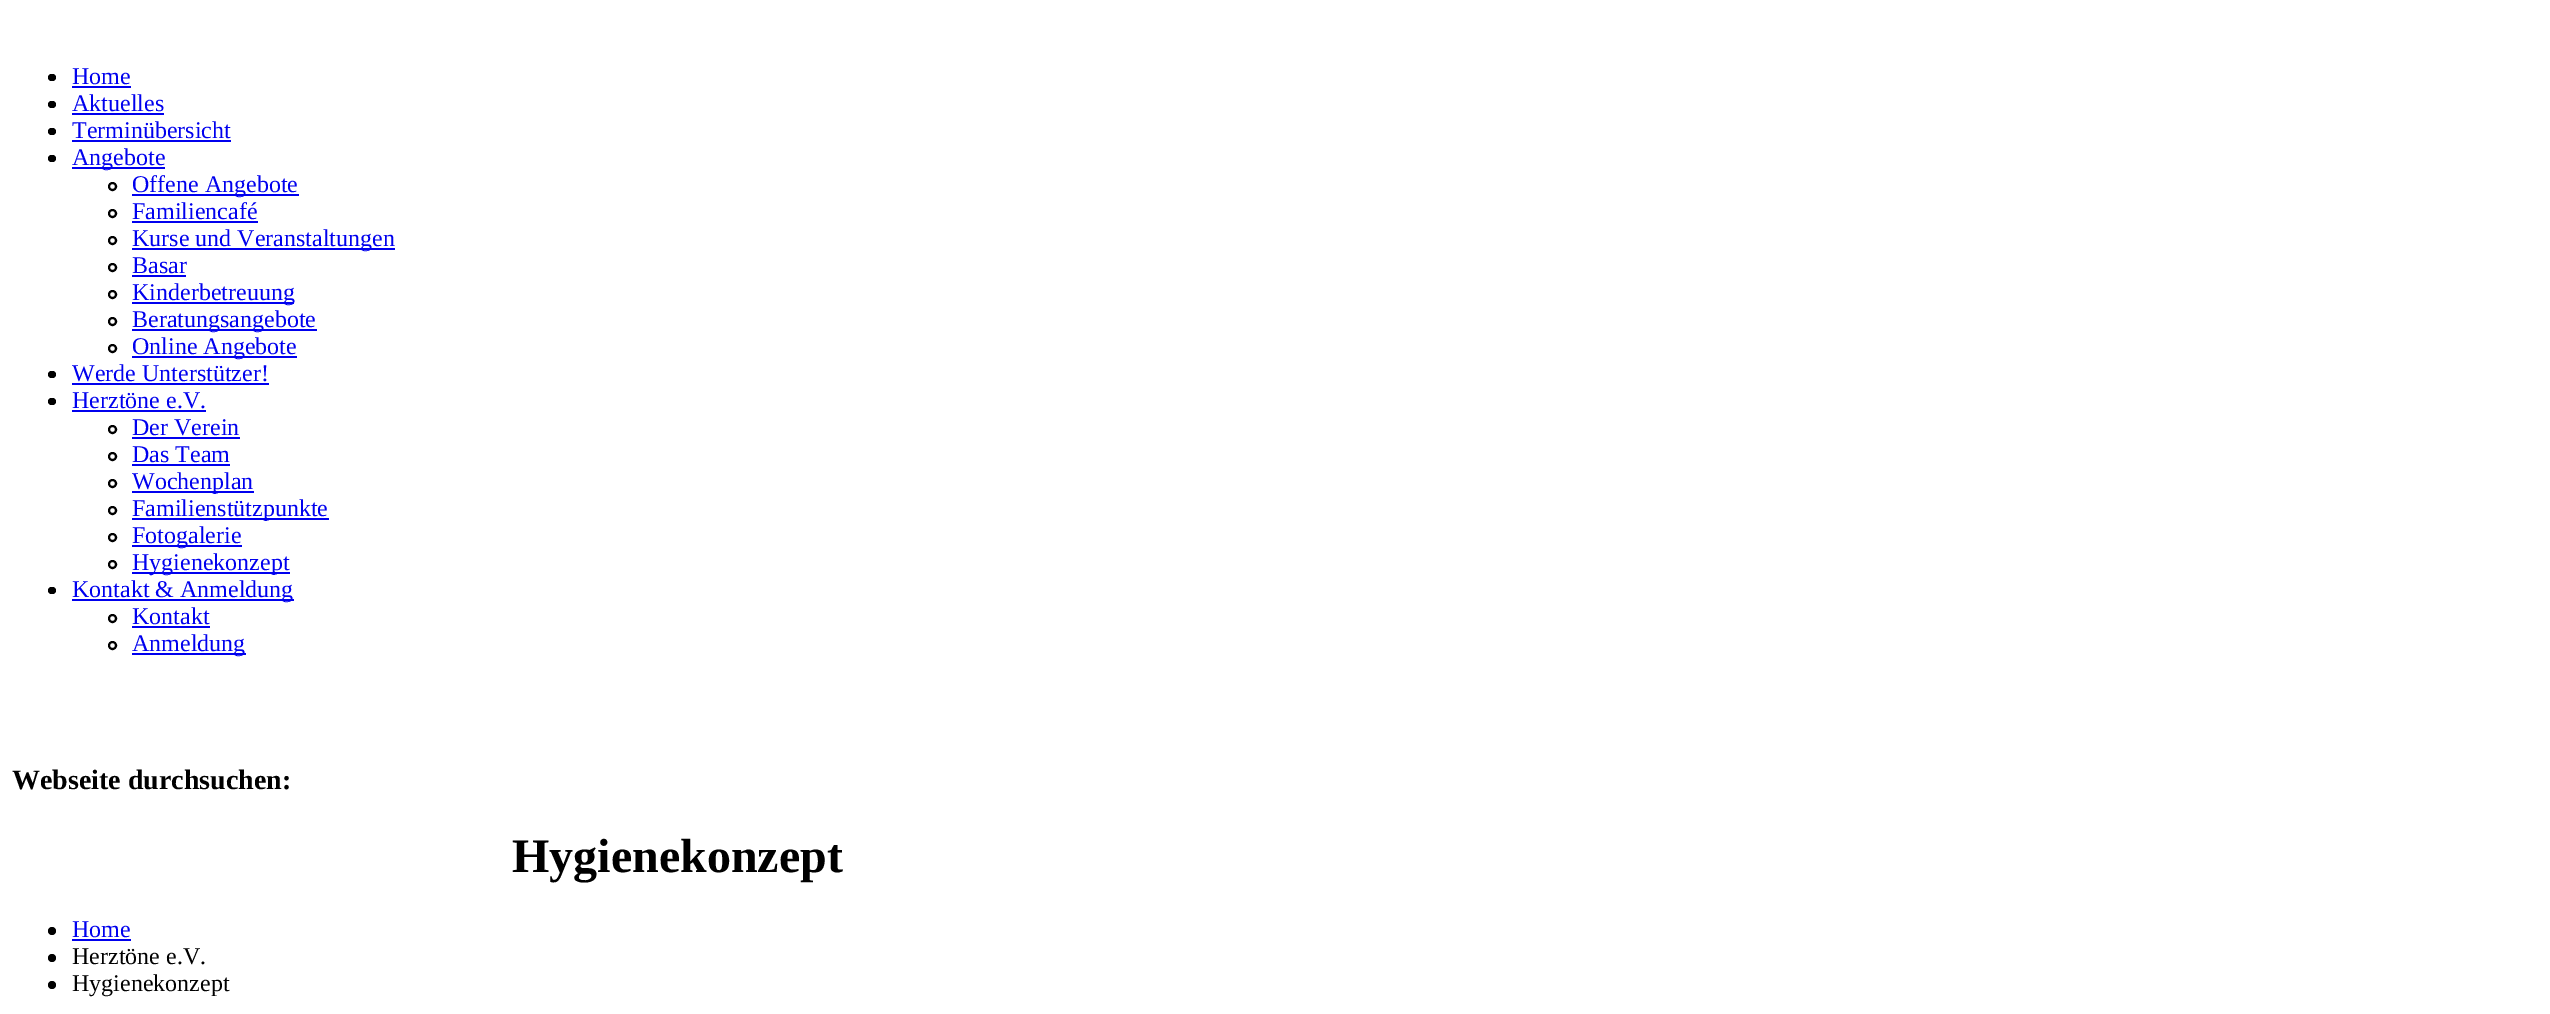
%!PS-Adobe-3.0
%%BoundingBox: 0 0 2550 1014
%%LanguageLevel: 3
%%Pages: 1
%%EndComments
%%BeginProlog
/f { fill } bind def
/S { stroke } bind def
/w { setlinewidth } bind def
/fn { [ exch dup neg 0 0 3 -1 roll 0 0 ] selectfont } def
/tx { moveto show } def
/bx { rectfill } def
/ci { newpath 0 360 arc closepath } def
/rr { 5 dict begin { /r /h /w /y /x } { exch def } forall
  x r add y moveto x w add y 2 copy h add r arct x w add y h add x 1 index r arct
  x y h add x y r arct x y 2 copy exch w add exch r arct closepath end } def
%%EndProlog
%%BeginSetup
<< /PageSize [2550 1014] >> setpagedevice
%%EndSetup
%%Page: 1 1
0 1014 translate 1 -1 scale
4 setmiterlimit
1 setgray
0 0 2550 1014 bx
0 setgray
48 74 8 7 3.5 rr f
/LiberationSerif-Regular 24 fn
0 0 0.933 setrgbcolor
(Home) 72 84 tx
72 86 59 2 bx
0 setgray
48 101 8 7 3.5 rr f
0 0 0.933 setrgbcolor
(Aktuelles) 72 111 tx
72 113 92 2 bx
0 setgray
48 128 8 7 3.5 rr f
0 0 0.933 setrgbcolor
(Terminübersicht) 72 138 tx
72 140 159 2 bx
0 setgray
48 155 8 7 3.5 rr f
0 0 0.933 setrgbcolor
72 167 93 2 bx
(Angebote) 72 165 tx
0 setgray
2 w
112.5 186.5 3.5 ci S
0 0 0.933 setrgbcolor
132 194 167 2 bx
(Offene Angebote) 132 192 tx
0 setgray
112.5 213.5 3.5 ci S
0 0 0.933 setrgbcolor
(Familiencafé) 132 219 tx
132 221 126 2 bx
0 setgray
112.5 240.5 3.5 ci S
0 0 0.933 setrgbcolor
132 248 263 2 bx
(Kurse und Veranstaltungen) 132 246 tx
0 setgray
112.5 267.5 3.5 ci S
0 0 0.933 setrgbcolor
(Basar) 132 273 tx
132 275 54 2 bx
0 setgray
112.5 294.5 3.5 ci S
0 0 0.933 setrgbcolor
132 302 162 2 bx
(Kinderbetreuung) 132 300 tx
0 setgray
112.5 321.5 3.5 ci S
0 0 0.933 setrgbcolor
132 329 185 2 bx
(Beratungsangebote) 132 327 tx
0 setgray
112.5 348.5 3.5 ci S
0 0 0.933 setrgbcolor
132 356 165 2 bx
(Online Angebote) 132 354 tx
0 setgray
48 371 8 7 3.5 rr f
0 0 0.933 setrgbcolor
(Werde Unterstützer!) 72 381 tx
72 383 197 2 bx
0 setgray
48 398 8 7 3.5 rr f
0 0 0.933 setrgbcolor
(Herztöne e.V.) 72 408 tx
72 410 134 2 bx
0 setgray
112.5 429.5 3.5 ci S
0 0 0.933 setrgbcolor
(Der Verein) 132 435 tx
132 437 108 2 bx
0 setgray
112.5 456.5 3.5 ci S
0 0 0.933 setrgbcolor
(Das Team) 132 462 tx
132 464 98 2 bx
0 setgray
112.5 483.5 3.5 ci S
0 0 0.933 setrgbcolor
132 491 122 2 bx
(Wochenplan) 132 489 tx
0 setgray
112.5 510.5 3.5 ci S
0 0 0.933 setrgbcolor
132 518 197 2 bx
(Familienstützpunkte) 132 516 tx
0 setgray
112.5 537.5 3.5 ci S
0 0 0.933 setrgbcolor
132 545 110 2 bx
(Fotogalerie) 132 543 tx
0 setgray
112.5 564.5 3.5 ci S
0 0 0.933 setrgbcolor
132 572 158 2 bx
(Hygienekonzept) 132 570 tx
0 setgray
48 587 8 7 3.5 rr f
0 0 0.933 setrgbcolor
72 599 222 2 bx
(Kontakt & Anmeldung) 72 597 tx
0 setgray
112.5 618.5 3.5 ci S
0 0 0.933 setrgbcolor
(Kontakt) 132 624 tx
132 626 78 2 bx
0 setgray
112.5 645.5 3.5 ci S
0 0 0.933 setrgbcolor
132 653 114 2 bx
(Anmeldung) 132 651 tx
/LiberationSerif-Bold 28 fn
0 setgray
(Webseite durchsuchen:) 12 789 tx
/LiberationSerif-Bold 48 fn
(Hygienekonzept) 512 872 tx
52 931 4 ci f
/LiberationSerif-Regular 24 fn
0 0 0.933 setrgbcolor
(Home) 72 937 tx
72 939 59 2 bx
0 setgray
52 958 4 ci f
(Herztöne e.V.) 72 964 tx
52 985 4 ci f
(Hygienekonzept) 72 991 tx
showpage
%%EOF
